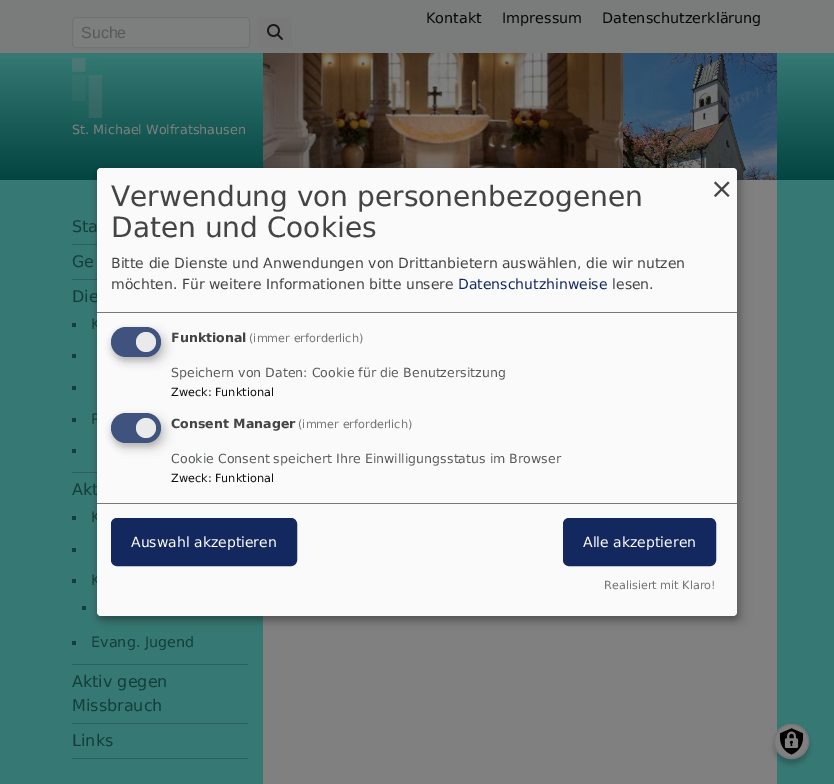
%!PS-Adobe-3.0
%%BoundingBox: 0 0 834 784
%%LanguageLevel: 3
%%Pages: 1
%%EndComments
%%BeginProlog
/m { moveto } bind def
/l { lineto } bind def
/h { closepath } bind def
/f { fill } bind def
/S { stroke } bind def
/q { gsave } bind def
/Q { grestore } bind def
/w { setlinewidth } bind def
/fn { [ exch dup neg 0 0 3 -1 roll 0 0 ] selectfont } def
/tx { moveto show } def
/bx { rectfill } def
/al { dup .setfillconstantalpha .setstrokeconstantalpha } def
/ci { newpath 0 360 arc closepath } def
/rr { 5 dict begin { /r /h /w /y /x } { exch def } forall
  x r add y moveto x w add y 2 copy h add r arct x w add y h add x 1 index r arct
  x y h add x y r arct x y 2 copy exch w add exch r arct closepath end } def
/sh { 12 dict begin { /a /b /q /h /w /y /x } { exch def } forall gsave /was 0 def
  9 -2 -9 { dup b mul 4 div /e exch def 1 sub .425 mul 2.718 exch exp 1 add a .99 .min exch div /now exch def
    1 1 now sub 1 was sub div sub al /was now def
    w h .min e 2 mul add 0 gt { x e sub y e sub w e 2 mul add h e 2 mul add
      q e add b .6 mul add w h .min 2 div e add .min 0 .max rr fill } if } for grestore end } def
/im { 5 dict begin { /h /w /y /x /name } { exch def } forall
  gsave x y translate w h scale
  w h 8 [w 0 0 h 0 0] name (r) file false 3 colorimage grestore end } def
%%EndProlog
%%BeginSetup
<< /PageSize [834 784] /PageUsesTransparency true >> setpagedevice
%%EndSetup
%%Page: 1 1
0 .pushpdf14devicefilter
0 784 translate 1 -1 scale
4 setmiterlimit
0.212 0.471 0.451 setrgbcolor
0 0 834 784 bx
0.478 0.486 0.482 setrgbcolor
0 0 834 53 bx
/DejaVuSans-Regular 14.4 fn
0.035 0.031 0.031 setrgbcolor
(Kontakt) 426 23 tx
(Impressum) 502 23 tx
(Datenschutzerklärung) 602 23 tx
0.49 0.494 0.494 setrgbcolor
72.5 17.5 177 30 3.5 rr q f Q
0.443 0.451 0.447 setrgbcolor
S
/LiberationSans-Regular 16 fn
0.337 0.349 0.353 setrgbcolor
(Suche) 81 38 tx
0.471 0.475 0.471 setrgbcolor
258 17 34 31 4 rr f
(image0.raw) 267 24 16 16 im
q 0 59 m 834 59 l 834 180 l 0 180 l h clip newpath
<< /ShadingType 2 /ColorSpace /DeviceRGB /Coords [417 53 417 180] /Extend [true true] /Function << /FunctionType 2 /Domain [0 1] /C0 [0.212 0.471 0.451] /C1 [0.012 0.271 0.251] /N 1 >> >> shfill Q
(image1.raw) 72 58 30 60 im
/DejaVuSans-Regular 12.75 fn
0.502 setgray
(St. Michael Wolfratshausen) 72 134 tx
(image2.raw) 263 53 360 115 im
(image3.raw) 623 53 154 127 im
0.169 0.376 0.361 setrgbcolor
72 244 25 1 bx
/DejaVuSans-Regular 16 fn
0.078 0.239 0.231 setrgbcolor
(Sta) 72 232 tx
0.169 0.376 0.361 setrgbcolor
72 279 25 1 bx
0.078 0.239 0.231 setrgbcolor
(Ge) 72 267 tx
0.169 0.376 0.361 setrgbcolor
72 472 25 1 bx
0.078 0.239 0.231 setrgbcolor
(Die) 72 302 tx
72 323 4 4 bx
/DejaVuSans-Regular 14.4 fn
(K) 91 329 tx
72 354 4 4 bx
72 386 4 4 bx
72 418 4 4 bx
(P) 91 424 tx
72 449 4 4 bx
0.169 0.376 0.361 setrgbcolor
72 664 176 1 bx
/DejaVuSans-Regular 16 fn
0.078 0.239 0.231 setrgbcolor
(Akt) 72 495 tx
72 516 4 4 bx
/DejaVuSans-Regular 14.4 fn
(K) 91 522 tx
72 548 4 4 bx
72 579 4 4 bx
(K) 91 585 tx
82 606 4 4 bx
72 641 4 4 bx
(Evang. Jugend) 91 647 tx
0.169 0.376 0.361 setrgbcolor
72 723 176 1 bx
/DejaVuSans-Regular 16 fn
0.078 0.239 0.231 setrgbcolor
(Aktiv gegen) 72 687 tx
(Missbrauch) 72 711 tx
0.169 0.376 0.361 setrgbcolor
72 758 176 1 bx
0.078 0.239 0.231 setrgbcolor
(Links) 72 746 tx
0.502 setgray
263 180 514 604 bx
0 setgray
102 173 640 448 4 5 0.19 sh
97 172 640 448 4 3 0.2 sh
0.98 setgray
97 168 640 448 4 rr f
0.467 setgray
97 312 640 1 bx
/DejaVuSans-Regular 28 fn
0.267 setgray
(Verwendung von personenbezogenen) 111 206 tx
(Daten und Cookies) 111 237 tx
/DejaVuSans-Regular 14 fn
(Bitte die Dienste und Anwendungen von Drittanbietern auswählen, die wir nutzen) 111 268 tx
(möchten. Für weitere Informationen bitte unsere) 111 289 tx
0.071 0.157 0.373 setrgbcolor
(Datenschutzhinweise) 458 289 tx
0.267 setgray
(lesen.) 612 289 tx
/DejaVuSans-Regular 28 fn
(×) 710 198 tx
0 setgray
116 332 50 30 15 5 0.15 sh
0.196 setgray
111 331 50 30 15 3 0.2 sh
0.251 0.322 0.494 setrgbcolor
111 327 50 30 15 rr f
0.918 setgray
146 342 10 ci f
/DejaVuSans-Bold 12.6 fn
0.267 setgray
(Funktional) 171 342 tx
/DejaVuSans-Regular 11.25 fn
0.467 setgray
(\(immer erforderlich\)) 249 342 tx
/DejaVuSans-Regular 12.6 fn
0.337 0.349 0.353 setrgbcolor
(Speichern von Daten: Cookie für die Benutzersitzung) 171 377 tx
/DejaVuSans-Regular 11.25 fn
0.067 setgray
(Zweck: Funktional) 171 396 tx
0 setgray
116 418 50 30 15 5 0.15 sh
0.196 setgray
111 417 50 30 15 3 0.2 sh
0.251 0.322 0.494 setrgbcolor
111 413 50 30 15 rr f
0.918 setgray
146 428 10 ci f
/DejaVuSans-Bold 12.6 fn
0.267 setgray
(Consent Manager) 171 428 tx
/DejaVuSans-Regular 11.25 fn
0.467 setgray
(\(immer erforderlich\)) 298 428 tx
/DejaVuSans-Regular 12.6 fn
0.337 0.349 0.353 setrgbcolor
(Cookie Consent speichert Ihre Einwilligungsstatus im Browser) 171 463 tx
/DejaVuSans-Regular 11.25 fn
0.067 setgray
(Zweck: Funktional) 171 482 tx
0.467 setgray
97 503 640 1 bx
0.071 0.157 0.373 setrgbcolor
112.5 519.5 183 45 4.5 rr q f Q
3 w
S
/DejaVuSans-Regular 14 fn
1 setgray
(Auswahl akzeptieren) 131 547 tx
0.071 0.157 0.373 setrgbcolor
564.5 519.5 150 45 4.5 rr q f Q
S
1 setgray
(Alle akzeptieren) 583 547 tx
/DejaVuSans-Regular 11.25 fn
0.467 setgray
(Realisiert mit Klaro!) 604 589 tx
0 setgray
774 729 35 35 17.5 2.5 0.2 sh
0.502 setgray
791.5 741.5 17.5 ci f
(image4.raw) 779 728 25 27 im
0.459 setgray
1 w
791.5 741.5 17 ci S
.poppdf14devicefilter showpage
%%EOF
